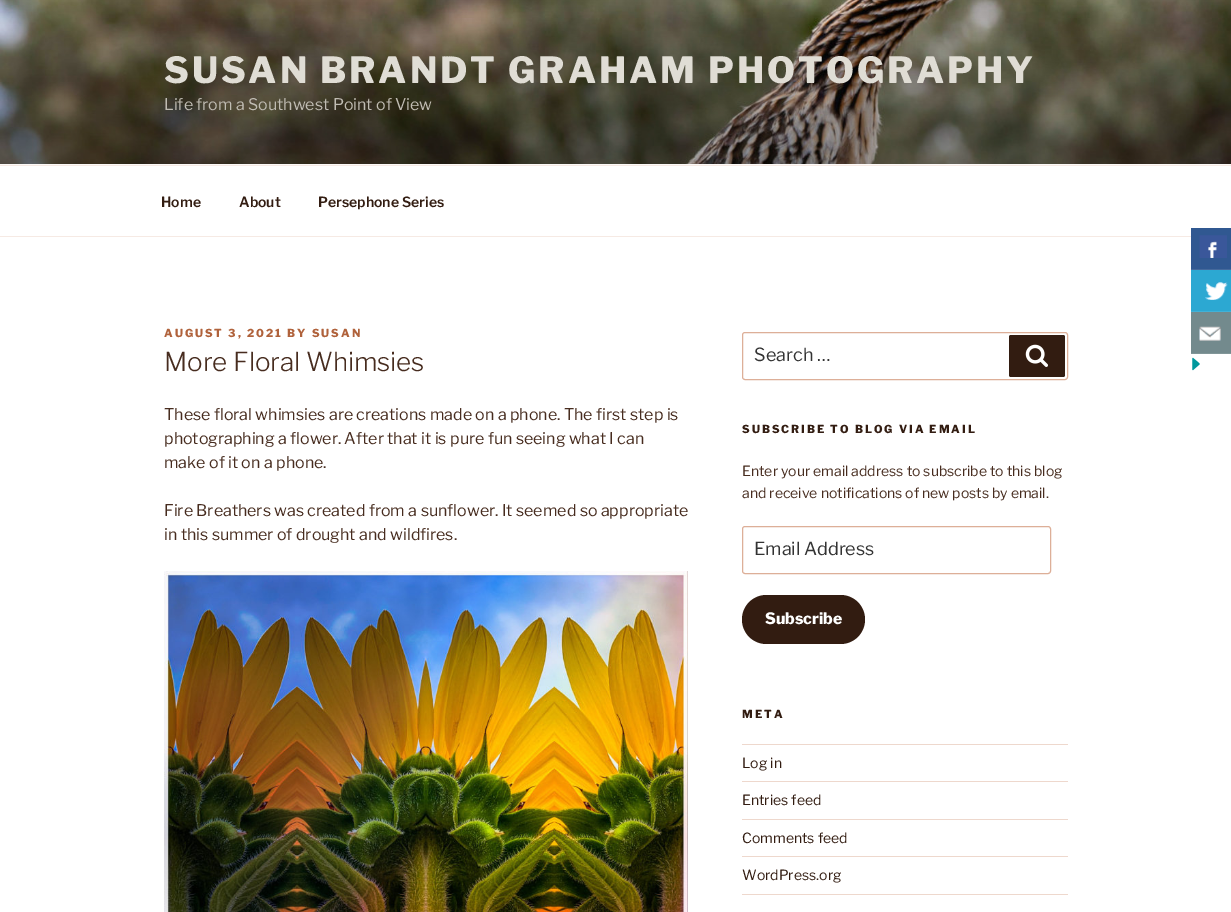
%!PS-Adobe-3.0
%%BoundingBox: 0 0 1231 912
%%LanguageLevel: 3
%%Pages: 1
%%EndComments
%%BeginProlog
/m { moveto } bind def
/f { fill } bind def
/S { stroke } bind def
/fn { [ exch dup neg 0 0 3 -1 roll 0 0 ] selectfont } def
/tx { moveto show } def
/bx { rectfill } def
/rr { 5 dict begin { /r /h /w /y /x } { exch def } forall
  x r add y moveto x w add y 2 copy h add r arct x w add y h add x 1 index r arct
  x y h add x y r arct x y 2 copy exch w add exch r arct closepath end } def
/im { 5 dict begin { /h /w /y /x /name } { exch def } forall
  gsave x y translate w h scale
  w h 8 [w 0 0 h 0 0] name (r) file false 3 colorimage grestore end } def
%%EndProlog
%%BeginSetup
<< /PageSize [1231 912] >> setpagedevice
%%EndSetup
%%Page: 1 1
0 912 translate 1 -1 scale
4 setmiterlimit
0.988 0.976 0.969 setrgbcolor
0 0 1231 912 bx
(image0.raw) 0 0 1231 164 im
/LibreFranklin-ExtraBold 36 fn
0.878 0.867 0.835 setrgbcolor
164 83 m 2.9 0 (SUSAN BRANDT GRAHAM PHOTOGRAPHY) ashow
/LibreFranklin-Regular 16 fn
0.753 0.737 0.702 setrgbcolor
(Life from a Southwest Point of View) 164 110 tx
1 setgray
0 166 1231 70 bx
0.965 0.918 0.894 setrgbcolor
0 165 1231 1 bx
0 236 1191 1 bx
/LibreFranklin-SemiBold 14 fn
0.196 0.11 0.067 setrgbcolor
(Home) 161 207 tx
(About) 239 207 tx
(Persephone Series) 318 207 tx
1 setgray
0 237 1231 675 bx
/LibreFranklin-ExtraBold 11 fn
0.69 0.384 0.231 setrgbcolor
164 337 m 2 0 (AUGUST 3, 2021 BY SUSAN) ashow
/LibreFranklin-Light 26 fn
0.278 0.173 0.122 setrgbcolor
(More Floral Whimsies) 164 371 tx
/LibreFranklin-Regular 16 fn
(These floral whimsies are creations made on a phone. The first step is) 164 420 tx
(photographing a flower. After that it is pure fun seeing what I can) 164 444 tx
(make of it on a phone.) 164 468 tx
(Fire Breathers was created from a sunflower. It seemed so appropriate) 164 516 tx
(in this summer of drought and wildfires.) 164 540 tx
(image1.raw) 164 571 524 341 im
0.867 0.686 0.596 setrgbcolor
742.5 332.5 325 47 2.5 rr S
/LibreFranklin-Regular 18 fn
0.2 setgray
(Search …) 754 361 tx
0.196 0.11 0.067 setrgbcolor
1009 335 56 42 2 rr f
(image2.raw) 1025 344 23 23 im
/LibreFranklin-ExtraBold 11 fn
742 433 m 2 0 (SUBSCRIBE TO BLOG VIA EMAIL) ashow
/LibreFranklin-Regular 14 fn
0.278 0.173 0.122 setrgbcolor
(Enter your email address to subscribe to this blog) 742 476 tx
(and receive notifications of new posts by email.) 742 498 tx
0.867 0.686 0.596 setrgbcolor
742.5 526.5 308 47 2.5 rr S
/LibreFranklin-Regular 18 fn
0.2 setgray
(Email Address) 754 555 tx
0.196 0.11 0.067 setrgbcolor
742 595 123 49 24.5 rr f
/LibreFranklin-ExtraBold 15.75 fn
1 setgray
(Subscribe) 765 624 tx
/LibreFranklin-ExtraBold 11 fn
0.196 0.11 0.067 setrgbcolor
742 718 m 2 0 (META) ashow
0.933 0.847 0.804 setrgbcolor
742 744 326 1 bx
742 781 326 1 bx
/LibreFranklin-Regular 14 fn
0.196 0.11 0.067 setrgbcolor
(Log in) 742 768 tx
0.933 0.847 0.804 setrgbcolor
742 819 326 1 bx
0.196 0.11 0.067 setrgbcolor
(Entries feed) 742 805 tx
0.933 0.847 0.804 setrgbcolor
742 856 326 1 bx
0.196 0.11 0.067 setrgbcolor
(Comments feed) 742 843 tx
0.933 0.847 0.804 setrgbcolor
742 894 326 1 bx
0.196 0.11 0.067 setrgbcolor
(WordPress.org) 742 880 tx
0.188 0.345 0.569 setrgbcolor
1191 228 40 41 bx
0.271 0.412 0.612 setrgbcolor
1191 269 40 1 bx
(image3.raw) 1199 235 28 23 im
0.173 0.659 0.824 setrgbcolor
1191 270 40 41 bx
0.255 0.694 0.843 setrgbcolor
1191 311 40 1 bx
(image4.raw) 1205 282 23 18 im
0.451 0.541 0.553 setrgbcolor
1191 312 40 41 bx
0.506 0.588 0.596 setrgbcolor
1191 353 40 1 bx
(image5.raw) 1199 326 22 15 im
(image6.raw) 1192 357 8 14 im
showpage
%%EOF
